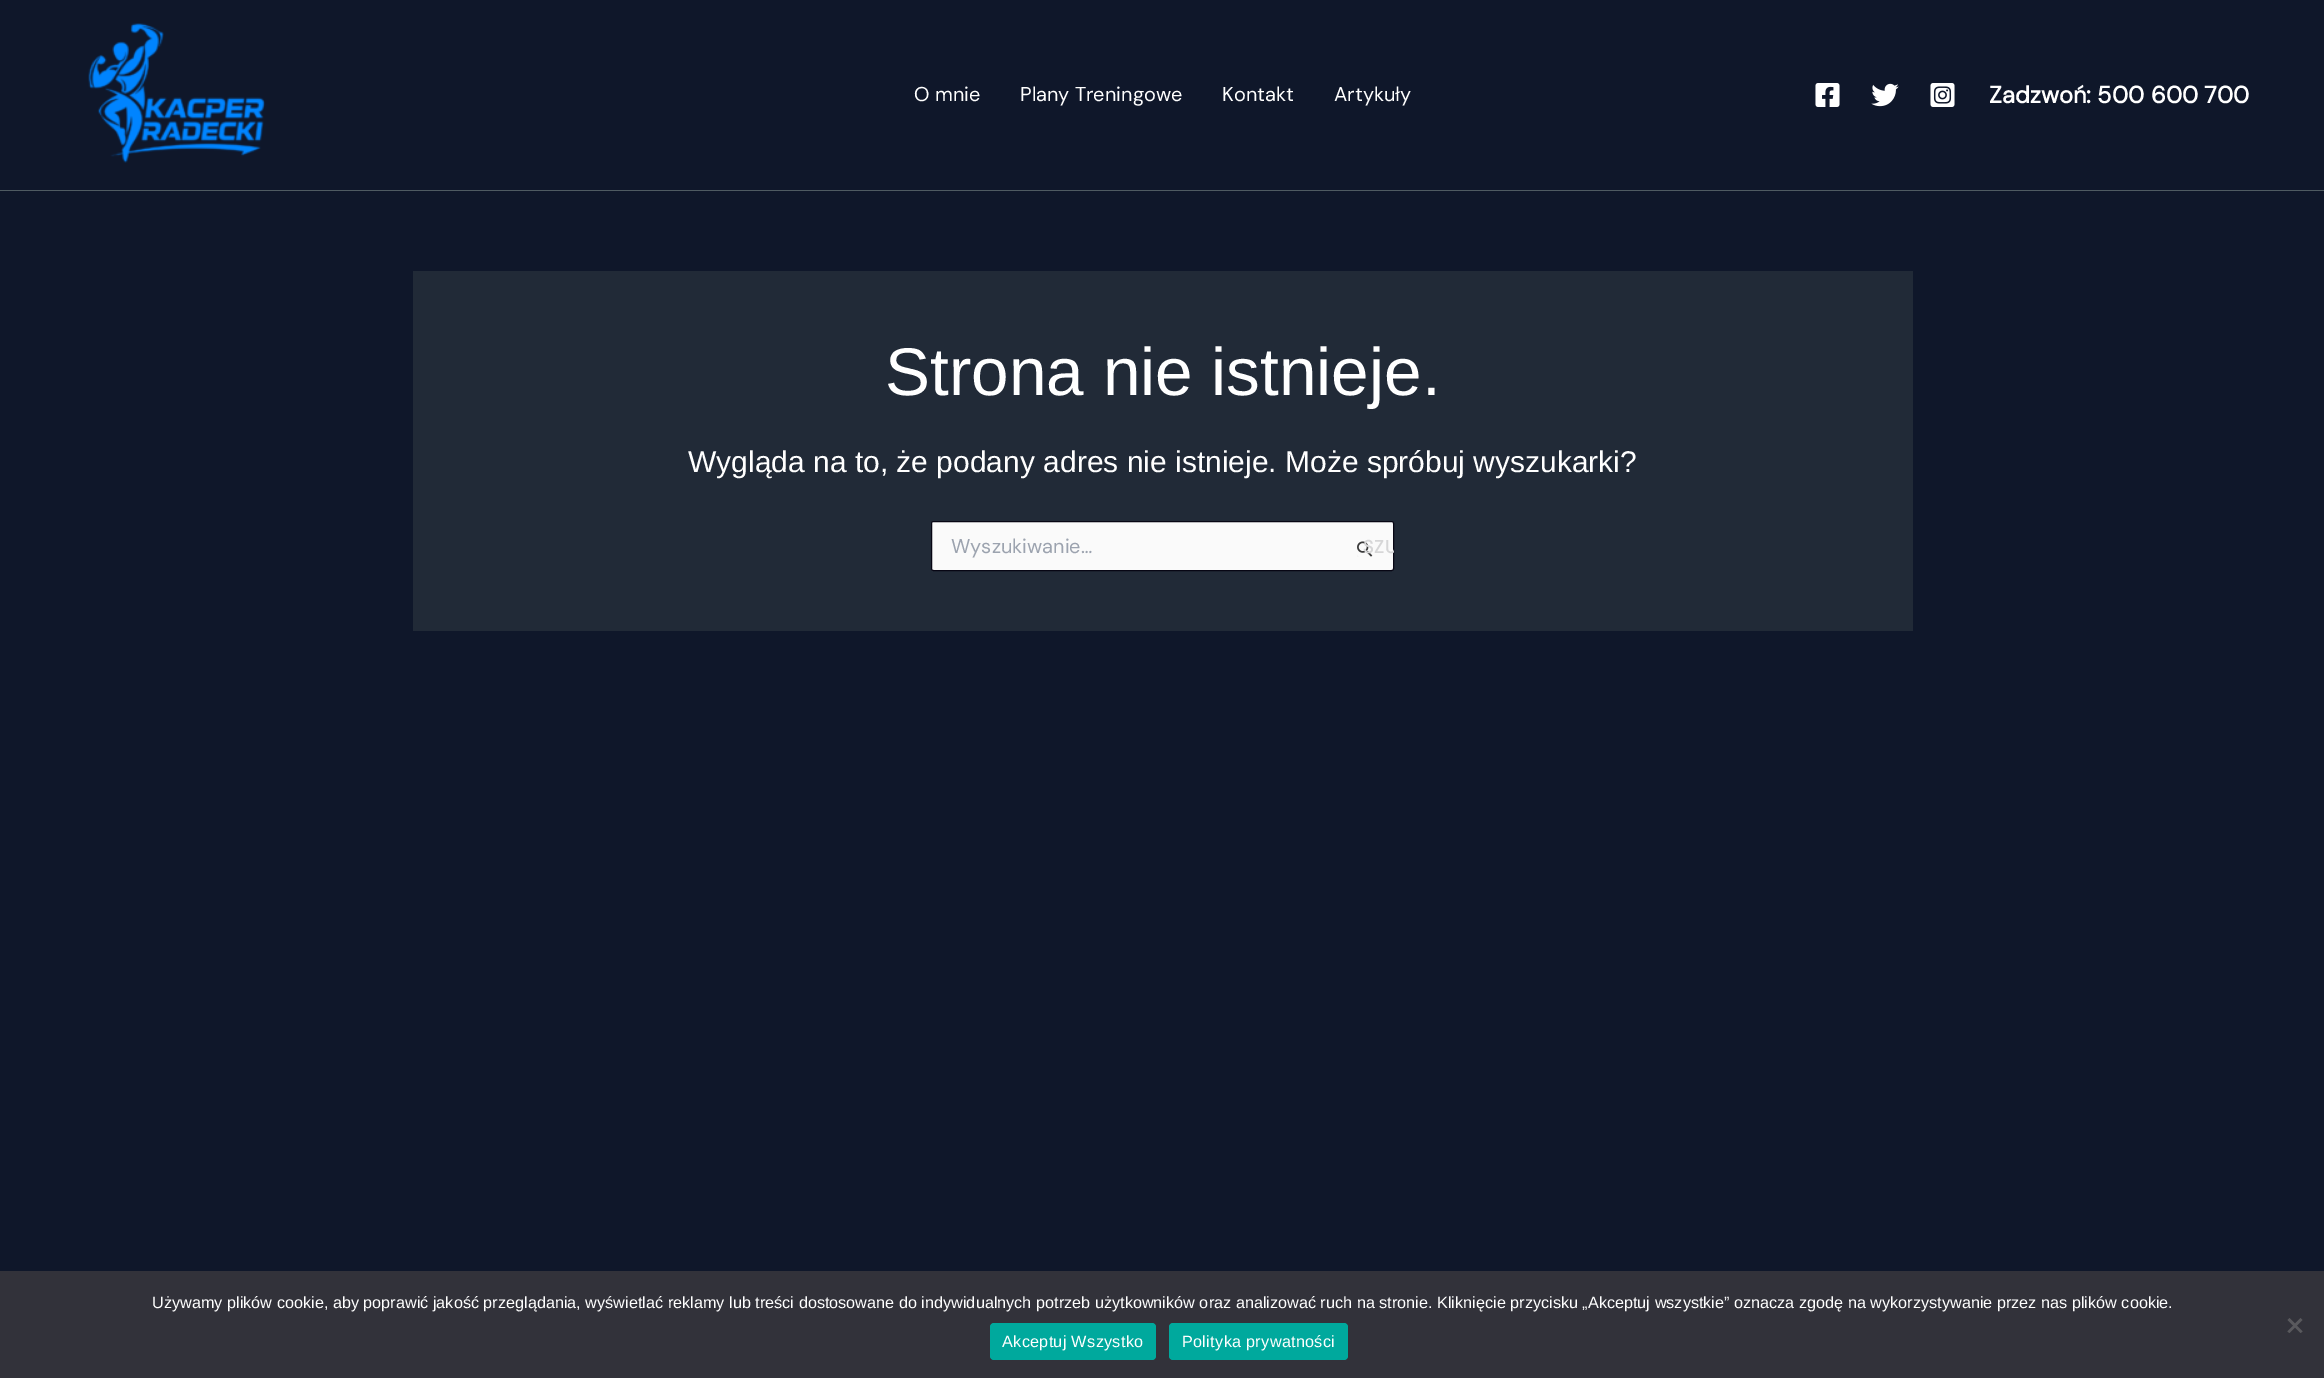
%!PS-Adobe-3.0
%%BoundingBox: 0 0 2324 1378
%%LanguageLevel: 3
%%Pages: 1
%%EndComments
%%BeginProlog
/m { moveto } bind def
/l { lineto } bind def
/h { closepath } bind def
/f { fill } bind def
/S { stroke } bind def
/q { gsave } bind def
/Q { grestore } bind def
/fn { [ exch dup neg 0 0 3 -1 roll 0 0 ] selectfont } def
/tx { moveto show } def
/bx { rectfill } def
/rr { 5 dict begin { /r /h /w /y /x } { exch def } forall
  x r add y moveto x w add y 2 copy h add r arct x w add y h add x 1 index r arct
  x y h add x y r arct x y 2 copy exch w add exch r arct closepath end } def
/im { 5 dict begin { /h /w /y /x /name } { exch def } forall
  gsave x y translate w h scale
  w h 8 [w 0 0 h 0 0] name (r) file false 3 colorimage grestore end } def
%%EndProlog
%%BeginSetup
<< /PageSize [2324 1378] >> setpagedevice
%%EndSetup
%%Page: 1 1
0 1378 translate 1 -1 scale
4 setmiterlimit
0.059 0.09 0.165 setrgbcolor
0 0 2324 1378 bx
0.31 0.357 0.384 setrgbcolor
0 190 2324 1 bx
(image0.raw) 88 23 177 140 im
/DMSans-Regular 20 fn
1 setgray
(O mnie) 914 101 tx
(Plany Treningowe) 1020 101 tx
(Kontakt) 1222 101 tx
(Artykuły) 1334 101 tx
(image1.raw) 1815 83 25 24 im
(image2.raw) 1871 83 28 24 im
(image3.raw) 1930 83 25 24 im
/DMSans-Bold 23.75 fn
(Zadzwoń: 500 600 700) 1989 103 tx
0.129 0.165 0.216 setrgbcolor
413 271 1500 360 bx
/LiberationSans-Regular 67.5 fn
1 setgray
(Strona nie istnieje.) 885 395 tx
/LiberationSans-Regular 30 fn
(Wygląda na to, że podany adres nie istnieje. Może spróbuj wyszukarki?) 688 472 tx
0.98 setgray
931.5 521.5 462 49 2 rr q f Q
0.027 0.024 0.078 setrgbcolor
S
/DMSans-Regular 20 fn
0.612 0.639 0.686 setrgbcolor
(Wyszukiwanie…) 951 553 tx
(image4.raw) 1357 541 16 16 im
q
1338 521 56 50 2.5 rr clip newpath
/DMSans-Bold 18 fn
0.839 0.839 0.843 setrgbcolor
1363 553 m 1 0 (SZU) ashow
Q
0.196 0.196 0.227 setrgbcolor
0 1271 2324 107 bx
/LiberationSans-Regular 16.25 fn
1 setgray
(Używamy plików cookie, aby poprawić jakość przeglądania, wyświetlać reklamy lub treści dostosowane do indywidualnych potrzeb użytkowników oraz analizować ruch na stronie. Kliknięcie przycisku „Akceptuj wszystkie” oznacza zgodę na wykorzystywanie przez nas plików cookie.) 152 1308 tx
0.349 0.349 0.365 setrgbcolor
2300.5 1318 m 2302.5 1320 l 2289.5 1333 l 2287.5 1331.5 l h f
2287.5 1320 m 2289.5 1318 l 2302.5 1331.5 l 2300.5 1333 l h f
0 0.663 0.616 setrgbcolor
990 1323 166 37 4 rr f
1 setgray
1002 1347 m 0.3 0 (Akceptuj Wszystko) ashow
0 0.663 0.616 setrgbcolor
1169 1323 179 37 4 rr f
1 setgray
1182 1347 m 0.3 0 (Polityka prywatności) ashow
showpage
%%EOF
